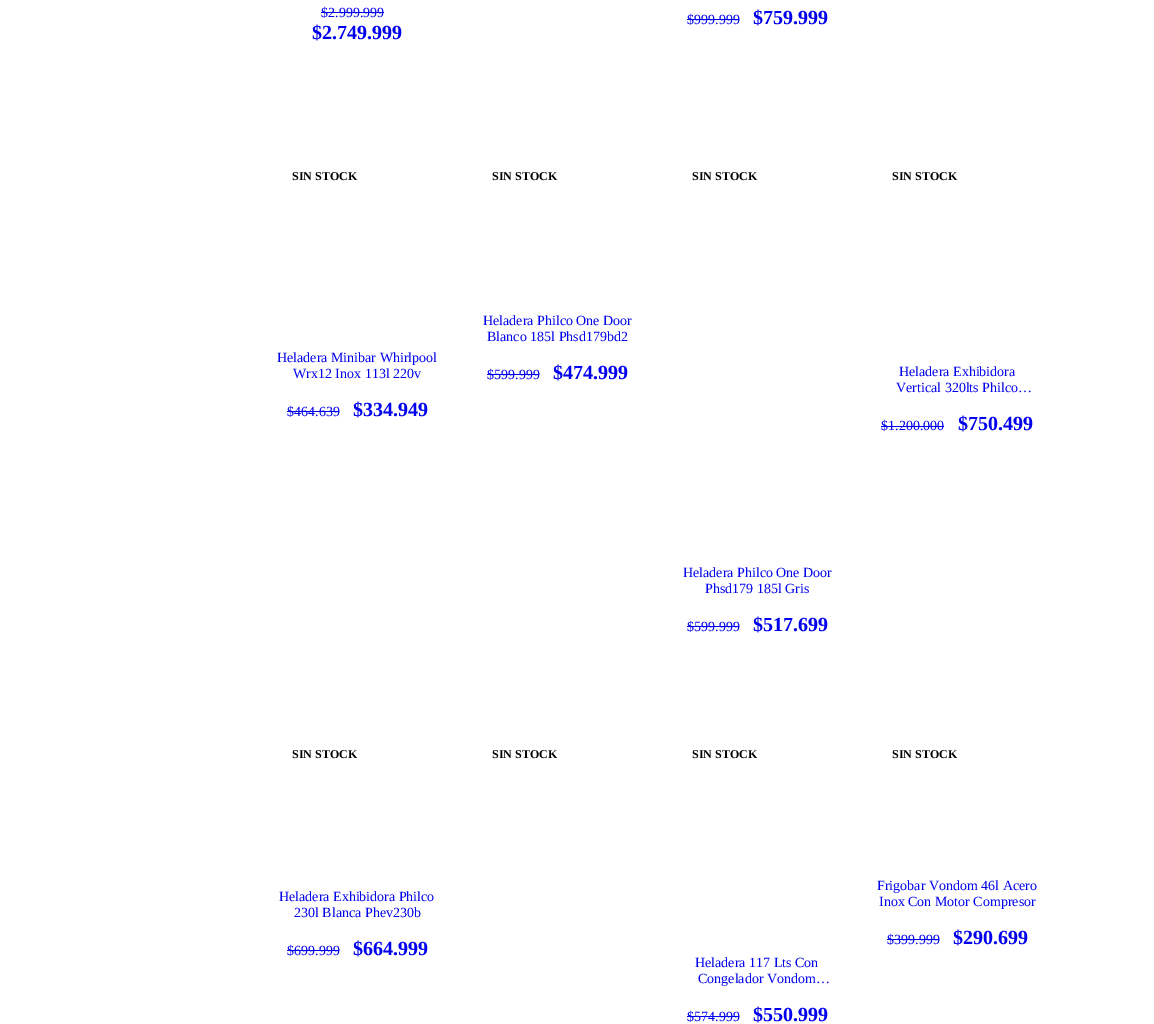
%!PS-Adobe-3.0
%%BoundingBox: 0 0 1154 1024
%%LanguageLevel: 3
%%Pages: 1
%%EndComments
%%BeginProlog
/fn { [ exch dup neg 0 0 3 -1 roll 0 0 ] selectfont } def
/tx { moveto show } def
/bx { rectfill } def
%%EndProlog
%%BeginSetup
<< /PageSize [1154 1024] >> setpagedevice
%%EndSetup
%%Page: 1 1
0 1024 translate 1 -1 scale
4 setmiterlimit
1 setgray
0 0 1154 1024 bx
/LiberationSerif-Regular 14 fn
0 0 0.933 setrgbcolor
($2.999.999) 321 17 tx
321 12 63 1 bx
/LiberationSerif-Bold 20 fn
($2.749.999) 312 39 tx
/LiberationSerif-Regular 14 fn
($999.999) 687 24 tx
687 19 52 1 bx
/LiberationSerif-Bold 20 fn
($759.999) 753 24 tx
/LiberationSerif-Bold 12 fn
0 setgray
(SIN STOCK) 292 180 tx
/LiberationSerif-Regular 14 fn
0 0 0.933 setrgbcolor
(Heladera Minibar Whirlpool) 277 362 tx
(Wrx12 Inox 113l 220v) 293 378 tx
($464.639) 287 416 tx
287 411 52 1 bx
/LiberationSerif-Bold 20 fn
($334.949) 353 416 tx
/LiberationSerif-Bold 12 fn
0 setgray
(SIN STOCK) 492 180 tx
/LiberationSerif-Regular 14 fn
0 0 0.933 setrgbcolor
(Heladera Philco One Door) 483 325 tx
(Blanco 185l Phsd179bd2) 487 341 tx
($599.999) 487 379 tx
487 374 52 1 bx
/LiberationSerif-Bold 20 fn
($474.999) 553 379 tx
/LiberationSerif-Bold 12 fn
0 setgray
(SIN STOCK) 692 180 tx
/LiberationSerif-Regular 14 fn
0 0 0.933 setrgbcolor
(Heladera Philco One Door) 683 577 tx
(Phsd179 185l Gris) 705 593 tx
($599.999) 687 631 tx
687 626 52 1 bx
/LiberationSerif-Bold 20 fn
($517.699) 753 631 tx
/LiberationSerif-Bold 12 fn
0 setgray
(SIN STOCK) 892 180 tx
/LiberationSerif-Regular 14 fn
0 0 0.933 setrgbcolor
(Heladera Exhibidora) 899 376 tx
(Vertical 320lts Philco…) 896 392 tx
($1.200.000) 881 430 tx
881 426 63 1 bx
/LiberationSerif-Bold 20 fn
($750.499) 958 430 tx
/LiberationSerif-Bold 12 fn
0 setgray
(SIN STOCK) 292 758 tx
/LiberationSerif-Regular 14 fn
0 0 0.933 setrgbcolor
(Heladera Exhibidora Philco) 279 901 tx
(230l Blanca Phev230b) 294 917 tx
($699.999) 287 955 tx
287 950 52 1 bx
/LiberationSerif-Bold 20 fn
($664.999) 353 955 tx
/LiberationSerif-Bold 12 fn
0 setgray
(SIN STOCK) 492 758 tx
(SIN STOCK) 692 758 tx
/LiberationSerif-Regular 14 fn
0 0 0.933 setrgbcolor
(Heladera 117 Lts Con) 695 967 tx
(Congelador Vondom…) 698 983 tx
($574.999) 687 1021 tx
687 1016 52 1 bx
/LiberationSerif-Bold 20 fn
($550.999) 753 1021 tx
/LiberationSerif-Bold 12 fn
0 setgray
(SIN STOCK) 892 758 tx
/LiberationSerif-Regular 14 fn
0 0 0.933 setrgbcolor
(Frigobar Vondom 46l Acero) 877 890 tx
(Inox Con Motor Compresor) 879 906 tx
($399.999) 887 944 tx
887 939 52 1 bx
/LiberationSerif-Bold 20 fn
($290.699) 953 944 tx
showpage
%%EOF
